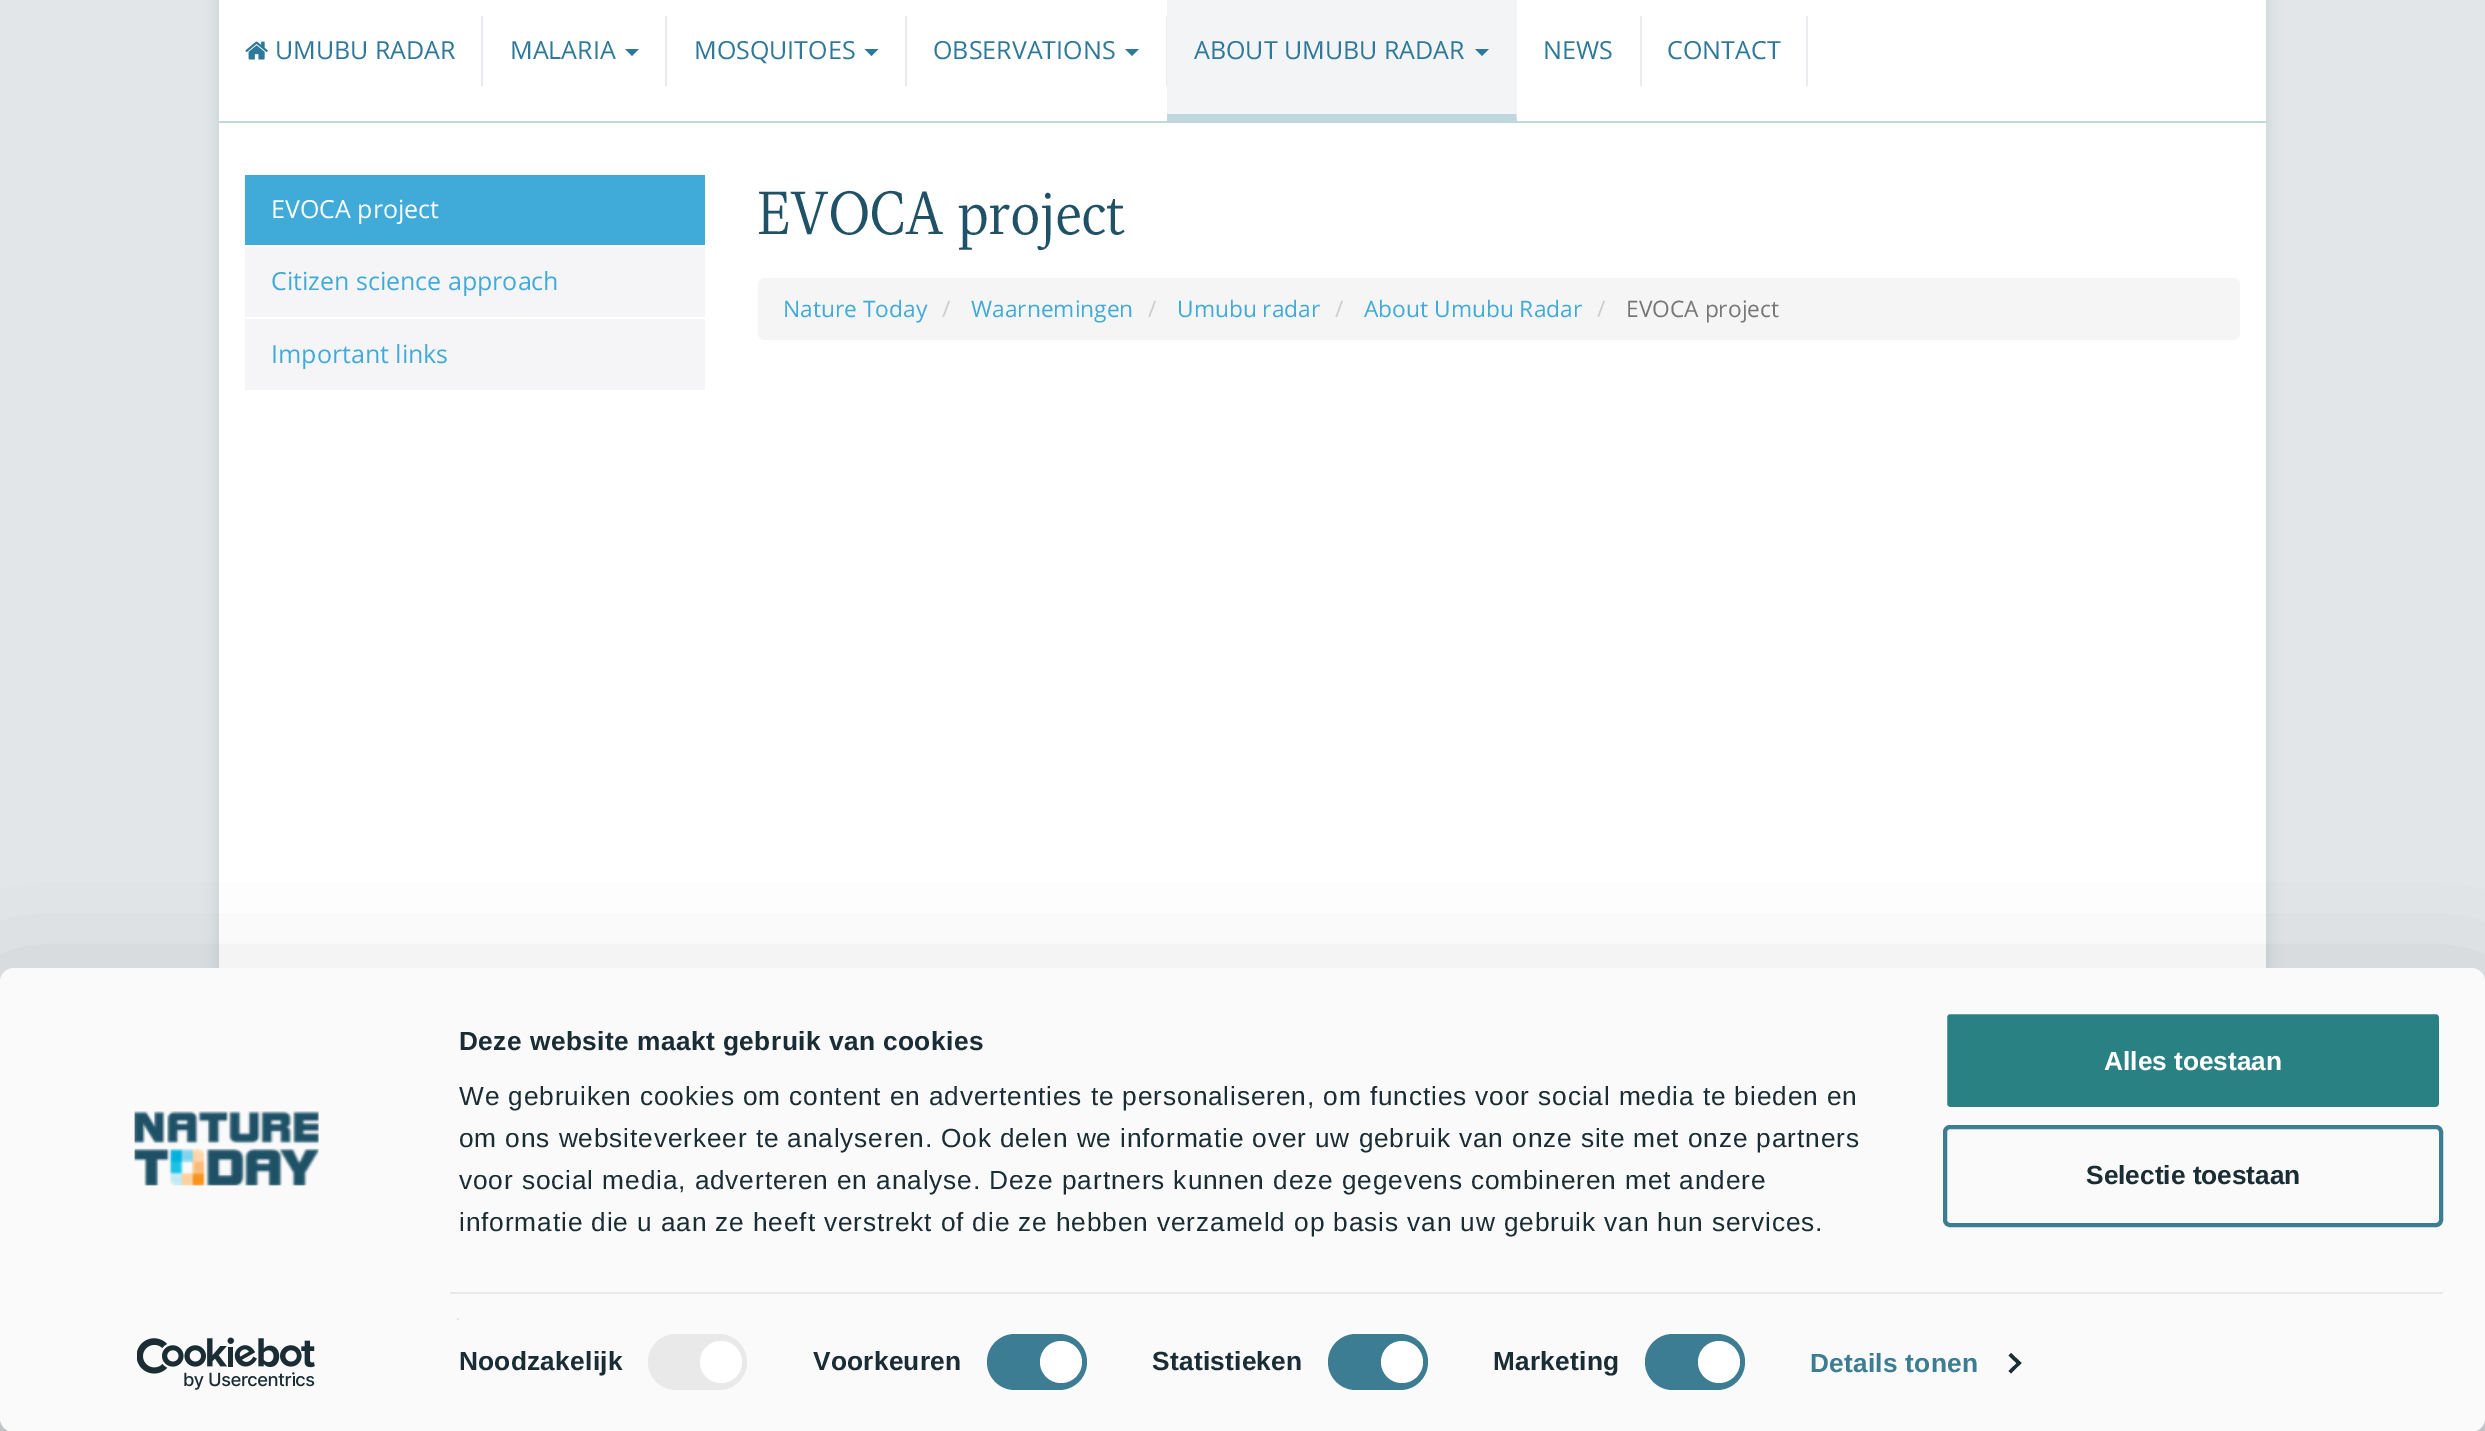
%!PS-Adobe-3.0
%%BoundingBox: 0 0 2485 1431
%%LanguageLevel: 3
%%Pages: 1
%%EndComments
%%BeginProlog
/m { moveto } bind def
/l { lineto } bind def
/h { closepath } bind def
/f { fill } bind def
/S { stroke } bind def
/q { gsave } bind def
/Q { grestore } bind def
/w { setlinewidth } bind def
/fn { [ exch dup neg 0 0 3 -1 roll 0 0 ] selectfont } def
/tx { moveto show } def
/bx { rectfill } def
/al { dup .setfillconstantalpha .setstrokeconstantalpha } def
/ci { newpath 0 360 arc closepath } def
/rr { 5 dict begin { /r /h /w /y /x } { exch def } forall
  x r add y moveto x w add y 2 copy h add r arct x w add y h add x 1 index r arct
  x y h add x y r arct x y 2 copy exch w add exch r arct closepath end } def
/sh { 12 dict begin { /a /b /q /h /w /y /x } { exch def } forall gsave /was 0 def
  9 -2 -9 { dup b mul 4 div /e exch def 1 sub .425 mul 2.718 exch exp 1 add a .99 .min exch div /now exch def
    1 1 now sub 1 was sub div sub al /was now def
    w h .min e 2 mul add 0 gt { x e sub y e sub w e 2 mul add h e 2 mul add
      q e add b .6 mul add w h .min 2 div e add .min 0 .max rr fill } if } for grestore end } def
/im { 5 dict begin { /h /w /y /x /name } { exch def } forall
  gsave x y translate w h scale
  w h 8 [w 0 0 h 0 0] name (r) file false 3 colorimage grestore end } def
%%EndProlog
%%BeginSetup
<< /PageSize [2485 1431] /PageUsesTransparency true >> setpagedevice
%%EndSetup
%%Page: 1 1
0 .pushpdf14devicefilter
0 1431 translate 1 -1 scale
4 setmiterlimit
0.89 0.902 0.91 setrgbcolor
0 0 2485 1431 bx
0.122 0.318 0.404 setrgbcolor
215 -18 2055 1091 0 6 0.1 sh
1 setgray
219 0 2047 968 bx
0.753 0.843 0.878 setrgbcolor
219 121 2047 2 bx
0.918 0.922 0.937 setrgbcolor
481 16 2 70 bx
(image0.raw) 245 41 23 19 im
/OpenSans-Regular 25 fn
0.18 0.475 0.6 setrgbcolor
(UMUBU RADAR) 275 59 tx
0.918 0.922 0.937 setrgbcolor
665 16 2 70 bx
0.18 0.475 0.6 setrgbcolor
(MALARIA) 510 59 tx
625 49 m 639 49 l 632 56 l h f
0.918 0.922 0.937 setrgbcolor
905 16 2 70 bx
0.18 0.475 0.6 setrgbcolor
(MOSQUITOES) 694 59 tx
864.5 49 m 878.5 49 l 871.5 56 l h f
0.918 0.922 0.937 setrgbcolor
1166 16 1 70 bx
0.18 0.475 0.6 setrgbcolor
(OBSERVATIONS) 933 59 tx
1125 49 m 1139 49 l 1132 56 l h f
0.953 0.957 0.961 setrgbcolor
1167 0 350 121 bx
0.753 0.843 0.878 setrgbcolor
1517 121 m 1167 121 l 1167 114 l 1516 114 l h f
0.18 0.475 0.6 setrgbcolor
(ABOUT UMUBU RADAR) 1194 59 tx
1475 49 m 1489 49 l 1482 56 l h f
0.918 0.922 0.937 setrgbcolor
1640 16 2 70 bx
0.18 0.475 0.6 setrgbcolor
(NEWS) 1543 59 tx
0.918 0.922 0.937 setrgbcolor
1806 16 2 70 bx
0.18 0.475 0.6 setrgbcolor
(CONTACT) 1667 59 tx
0.961 0.961 0.969 setrgbcolor
245 247 460 143 bx
0.251 0.671 0.851 setrgbcolor
245 175 460 70 bx
1 setgray
(EVOCA project) 271 218 tx
245 317 460 2 bx
0.251 0.671 0.851 setrgbcolor
(Citizen science approach) 271 290 tx
(Important links) 271 363 tx
/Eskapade-Regular 63 fn
0.122 0.322 0.404 setrgbcolor
(EVOCA project) 757 234 tx
0.961 setgray
758 278 1482 62 7 rr f
/OpenSans-Regular 22.75 fn
0.251 0.671 0.851 setrgbcolor
(Nature Today) 783 317 tx
0.8 setgray
(/) 942 317 tx
0.251 0.671 0.851 setrgbcolor
(Waarnemingen) 971 317 tx
0.8 setgray
(/) 1148 317 tx
0.251 0.671 0.851 setrgbcolor
(Umubu radar) 1177 317 tx
0.8 setgray
(/) 1335 317 tx
0.251 0.671 0.851 setrgbcolor
(About Umubu Radar) 1364 317 tx
0.8 setgray
(/) 1597 317 tx
0.467 setgray
(EVOCA project) 1626 317 tx
0 setgray
0 1020 2485 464 14 61 0.3 sh
0.98 setgray
0 968 2485 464 14 rr f
(image1.raw) 134 1111 185 75 im
(image2.raw) 137 1337 178 53 im
/LiberationSans-Bold 26.25 fn
0.102 0.176 0.208 setrgbcolor
459 1050 m 0.45 0 (Deze website maakt gebruik van cookies) ashow
/LiberationSans-Regular 26.25 fn
459 1105 m 0.88 0 (We gebruiken cookies om content en advertenties te personaliseren, om functies voor social media te bieden en) ashow
459 1147 m 0.88 0 (om ons websiteverkeer te analyseren. Ook delen we informatie over uw gebruik van onze site met onze partners) ashow
459 1189 m 0.88 0 (voor social media, adverteren en analyse. Deze partners kunnen deze gegevens combineren met andere) ashow
459 1231 m 0.88 0 (informatie die u aan ze heeft verstrekt of die ze hebben verzameld op basis van uw gebruik van hun services.) ashow
0.914 setgray
450 1292 1993 2 bx
0.898 setgray
457 1318 2 2 bx
/LiberationSans-Bold 26.25 fn
0.102 0.176 0.208 setrgbcolor
459 1370 m 0.25 0 (Noodzakelijk) ashow
0.914 setgray
648 1334 99 56 28 rr f
1 setgray
721 1362 21 ci f
0.102 0.176 0.208 setrgbcolor
813 1370 m 0.25 0 (Voorkeuren) ashow
0.239 0.49 0.58 setrgbcolor
987 1334 100 56 28 rr f
1 setgray
1061 1362 21 ci f
0.102 0.176 0.208 setrgbcolor
1152 1370 m 0.25 0 (Statistieken) ashow
0.239 0.49 0.58 setrgbcolor
1328 1334 100 56 28 rr f
1 setgray
1402 1362 21 ci f
0.102 0.176 0.208 setrgbcolor
1493 1370 m 0.25 0 (Marketing) ashow
0.239 0.49 0.58 setrgbcolor
1645 1334 100 56 28 rr f
1 setgray
1719 1362 21 ci f
0.239 0.49 0.58 setrgbcolor
1810 1372 m 0.25 0 (Details tonen) ashow
0.102 0.176 0.208 setrgbcolor
2011 1353 m 2021.5 1363 l 2019 1365.5 l 2008.5 1355.5 l h f
2019 1361 m 2021.5 1363 l 2011 1373.5 l 2008.5 1371 l h f
0.165 0.506 0.518 setrgbcolor
1945 1012 496 97 5 rr q f Q
0.98 setgray
4 w
S
1 setgray
(Alles toestaan) 2104 1070 tx
0.239 0.49 0.58 setrgbcolor
1945 1127 496 98 5 rr S
0.102 0.176 0.208 setrgbcolor
(Selectie toestaan) 2086 1184 tx
.poppdf14devicefilter showpage
%%EOF
